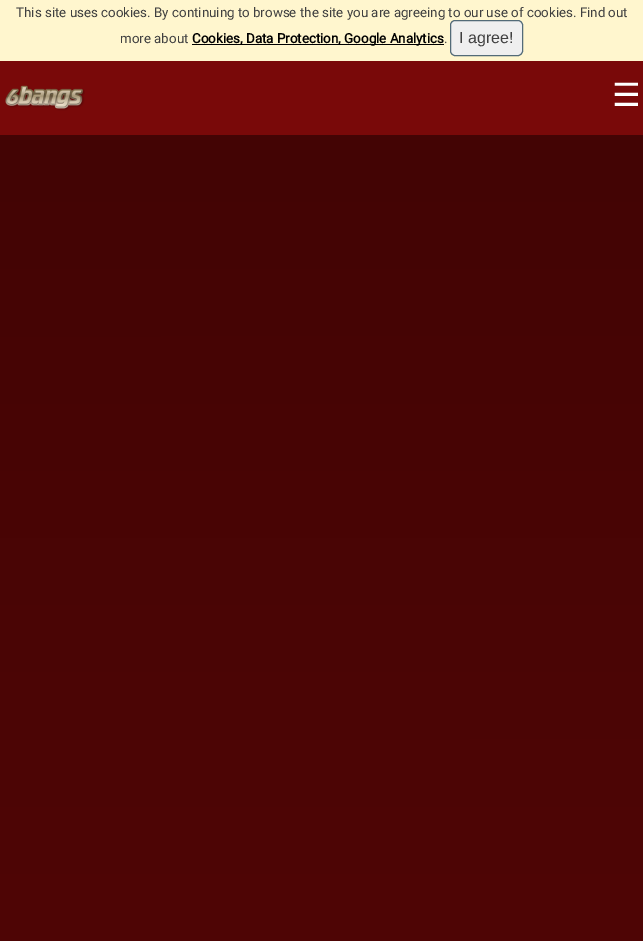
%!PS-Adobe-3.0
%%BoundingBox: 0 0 643 941
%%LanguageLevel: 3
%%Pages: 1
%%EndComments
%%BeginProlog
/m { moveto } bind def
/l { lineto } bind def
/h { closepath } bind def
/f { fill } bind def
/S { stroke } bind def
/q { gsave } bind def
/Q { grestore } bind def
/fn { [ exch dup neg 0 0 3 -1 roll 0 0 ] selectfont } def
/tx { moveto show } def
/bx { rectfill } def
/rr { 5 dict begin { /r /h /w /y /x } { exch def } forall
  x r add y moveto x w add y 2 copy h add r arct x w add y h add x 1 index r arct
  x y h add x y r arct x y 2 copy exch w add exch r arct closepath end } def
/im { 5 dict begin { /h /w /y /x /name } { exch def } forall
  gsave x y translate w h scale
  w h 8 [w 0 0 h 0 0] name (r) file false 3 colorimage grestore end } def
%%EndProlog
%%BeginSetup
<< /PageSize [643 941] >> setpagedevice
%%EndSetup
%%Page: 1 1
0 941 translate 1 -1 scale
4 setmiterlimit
1 setgray
0 0 643 941 bx
q 0 135 m 643 135 l 643 941 l 0 941 l h clip newpath
<< /ShadingType 2 /ColorSpace /DeviceRGB /Coords [321 0 322 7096] /Extend [true true] /Function << /FunctionType 3 /Domain [0 1] /Functions [<< /FunctionType 2 /Domain [0 1] /C0 [0.255 0.016 0.016] /C1 [0.475 0.035 0.035] /N 1 >> << /FunctionType 2 /Domain [0 1] /C0 [0.475 0.035 0.035] /C1 [1 0.467 0] /N 1 >>] /Bounds [0.52] /Encode [0 1 0 1] >> >> shfill Q
1 0.965 0.808 setrgbcolor
0 0 643 61 bx
/Roboto-Regular 13.35 fn
0.251 setgray
(This site uses cookies. By continuing to browse the site you are agreeing to our use of cookies. Find out) 16 17 tx
(more about) 120 43 tx
0 setgray
192 44 252 1 bx
/Roboto-Bold 13.35 fn
(Cookies, Data Protection, Google Analytics) 192 43 tx
/Roboto-Regular 13.35 fn
0.251 setgray
(.) 444 43 tx
0.937 setgray
450.5 20.5 72 35 4.5 rr q f Q
0.325 0.42 0.471 setrgbcolor
S
/LiberationSans-Regular 16 fn
0.251 setgray
(I agree!) 459 43 tx
0.475 0.035 0.035 setrgbcolor
0 61 643 74 bx
(image0.raw) 5 85 80 26 im
/DejaVuSans-Regular 32 fn
1 setgray
(☰) 612 106 tx
showpage
%%EOF
